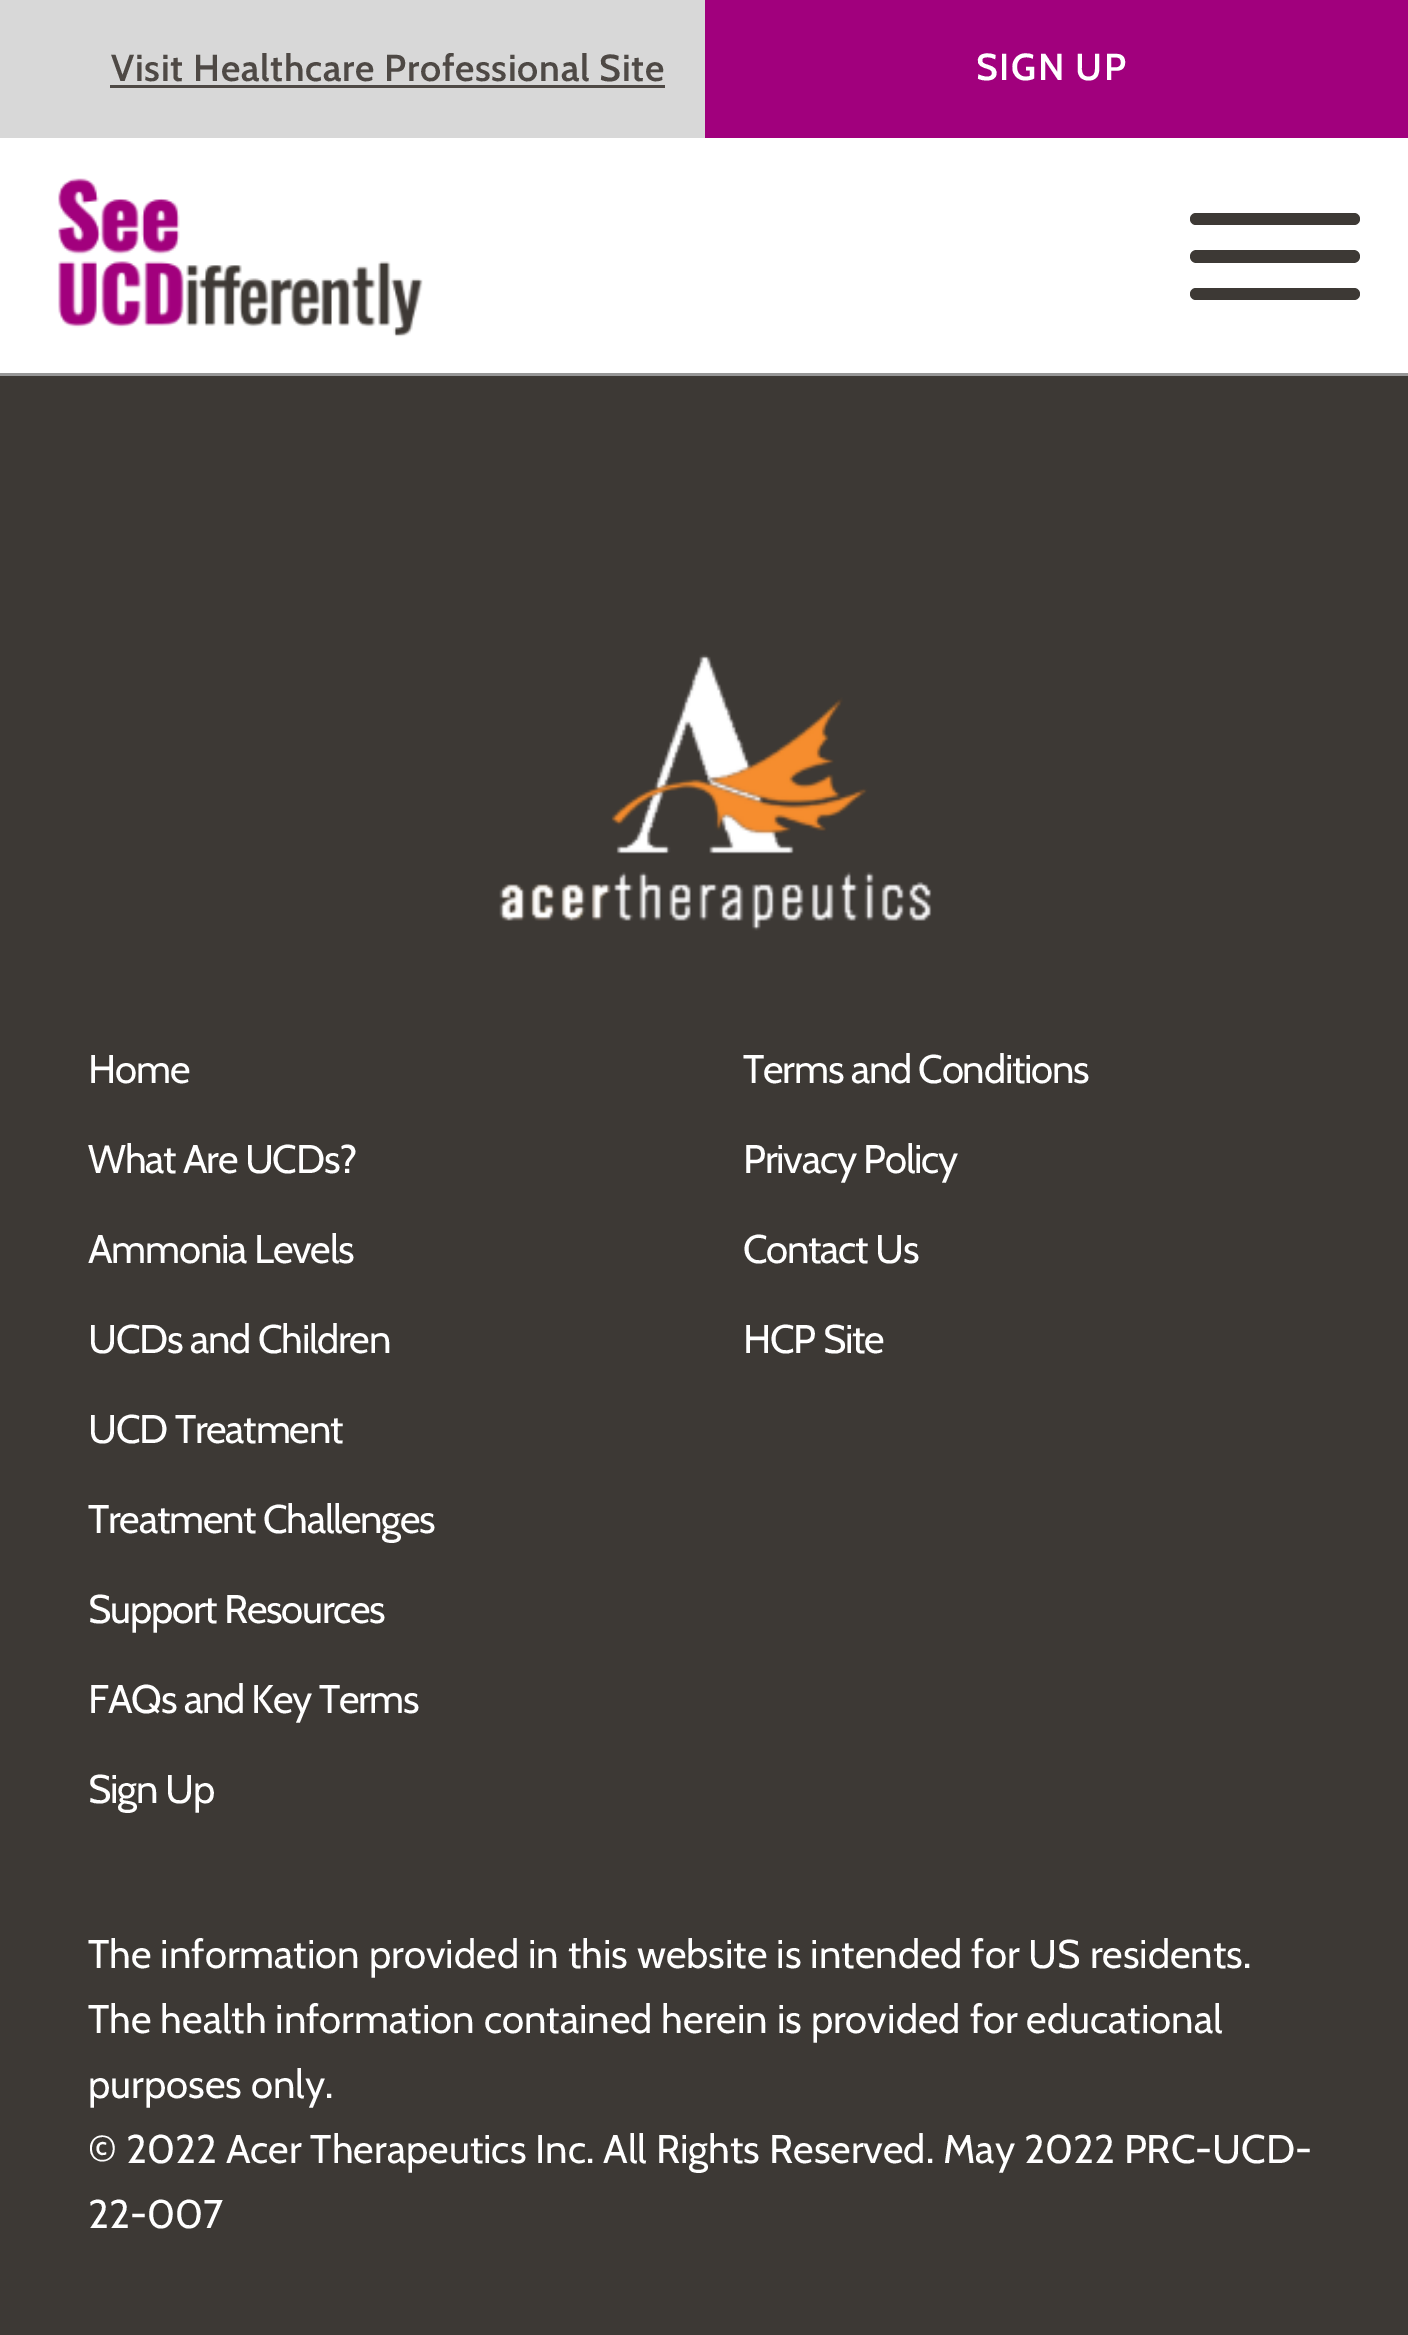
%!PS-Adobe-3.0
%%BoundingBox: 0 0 1408 2335
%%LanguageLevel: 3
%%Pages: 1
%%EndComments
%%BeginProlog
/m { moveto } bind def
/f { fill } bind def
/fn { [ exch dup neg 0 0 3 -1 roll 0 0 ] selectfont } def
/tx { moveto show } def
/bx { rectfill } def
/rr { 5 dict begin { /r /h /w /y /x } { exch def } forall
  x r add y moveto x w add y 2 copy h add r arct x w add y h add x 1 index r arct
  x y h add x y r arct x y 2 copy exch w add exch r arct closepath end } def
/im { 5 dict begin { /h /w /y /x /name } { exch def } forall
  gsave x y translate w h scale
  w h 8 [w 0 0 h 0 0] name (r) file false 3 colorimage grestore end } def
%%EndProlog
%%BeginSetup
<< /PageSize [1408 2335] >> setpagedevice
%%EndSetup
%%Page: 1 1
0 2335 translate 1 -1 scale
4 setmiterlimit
0.239 0.224 0.208 setrgbcolor
0 0 1408 2335 bx
1 setgray
0 138 1408 235 bx
0.592 setgray
0 373 1408 3 bx
0.847 setgray
0 0 705 138 bx
/Cabin-SemiBold 37.5 fn
0.306 0.286 0.271 setrgbcolor
111 81 m 0.75 0 (Visit Healthcare Professional Site) ashow
110 85 555 3 bx
0.631 0 0.49 setrgbcolor
705 0 703 138 bx
1 setgray
976 80 m 1.5 0 (SIGN UP) ashow
(image0.raw) 58 178 365 159 im
0.239 0.224 0.208 setrgbcolor
1190 213 170 12 6 rr f
1190 250 170 13 6.5 rr f
1190 288 170 12 6 rr f
(image1.raw) 499 654 433 277 im
/Cabin-Regular 40 fn
1 setgray
88 1083 m -1.25 0 (Home) ashow
743 1083 m -1.25 0 (Terms and Conditions) ashow
88 1173 m -1.25 0 (What Are UCDs?) ashow
743 1173 m -1.25 0 (Privacy Policy) ashow
88 1263 m -1.25 0 (Ammonia Levels) ashow
743 1263 m -1.25 0 (Contact Us) ashow
88 1353 m -1.25 0 (UCDs and Children) ashow
743 1353 m -1.25 0 (HCP Site) ashow
88 1443 m -1.25 0 (UCD Treatment) ashow
88 1533 m -1.25 0 (Treatment Challenges) ashow
88 1623 m -1.25 0 (Support Resources) ashow
88 1713 m -1.25 0 (FAQs and Key Terms) ashow
88 1803 m -1.25 0 (Sign Up) ashow
(The information provided in this website is intended for US residents.) 88 1968 tx
(The health information contained herein is provided for educational) 88 2033 tx
(purposes only.) 88 2098 tx
(© 2022 Acer Therapeutics Inc. All Rights Reserved. May 2022 PRC-UCD-) 88 2163 tx
(22-007) 88 2228 tx
showpage
%%EOF
